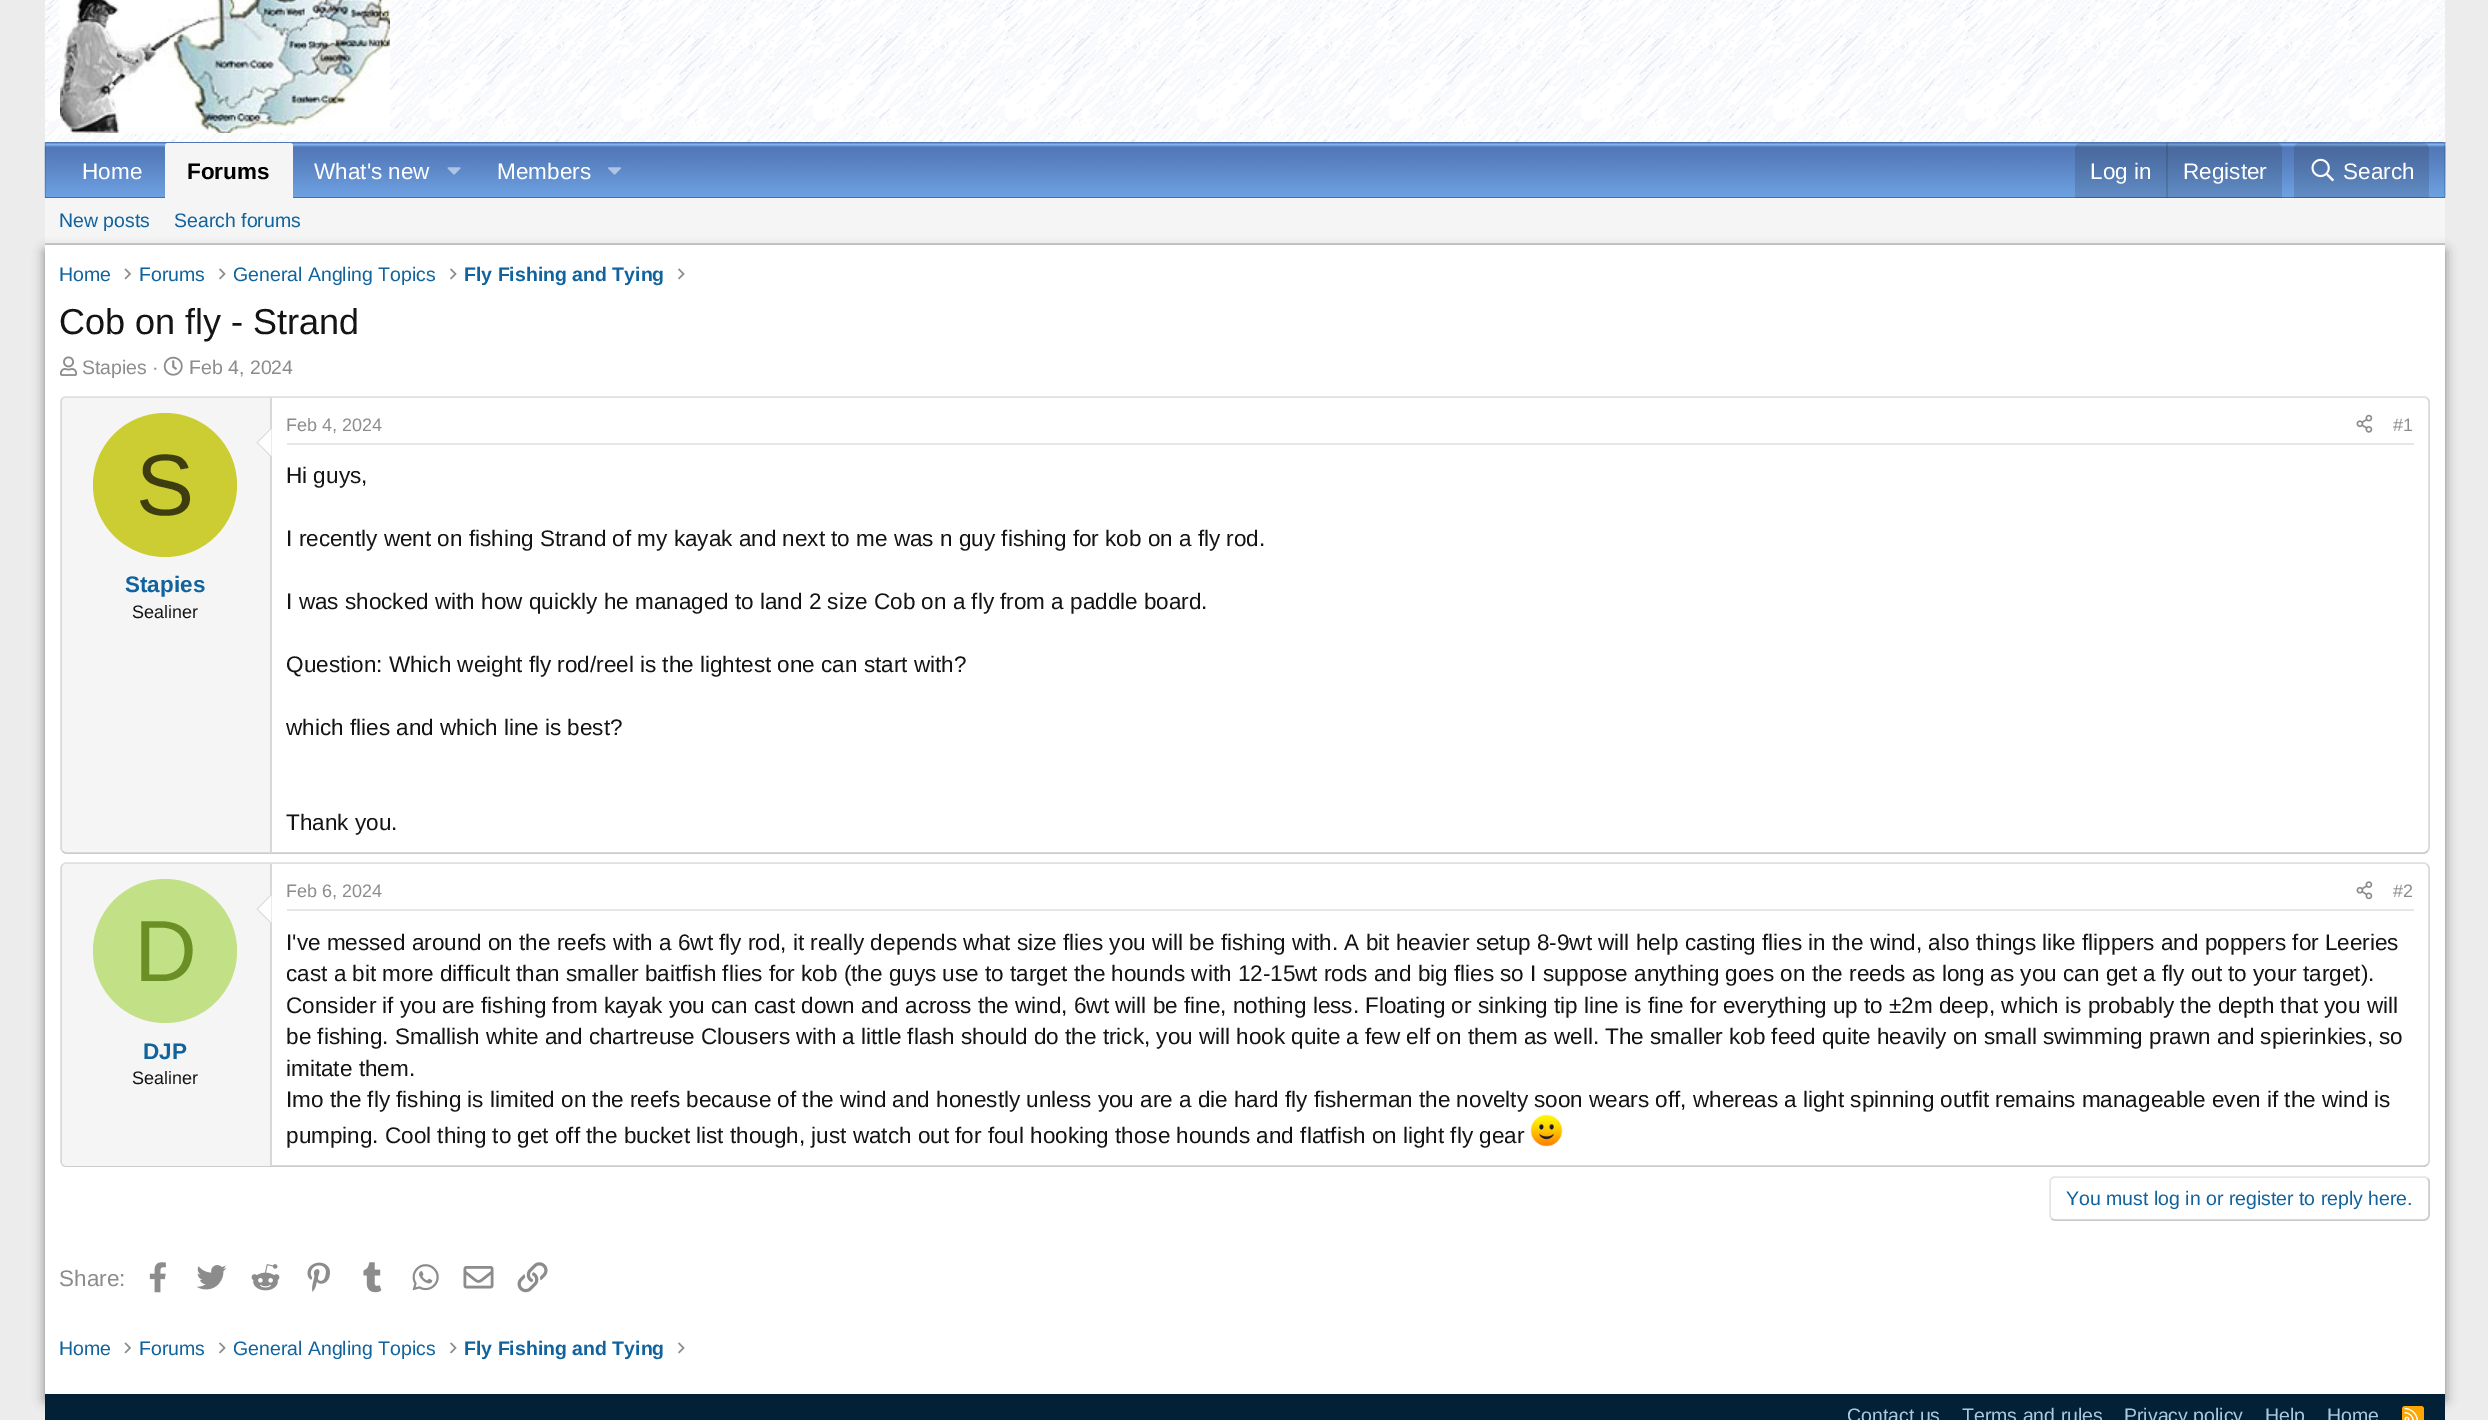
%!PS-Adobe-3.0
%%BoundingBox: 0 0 2488 1420
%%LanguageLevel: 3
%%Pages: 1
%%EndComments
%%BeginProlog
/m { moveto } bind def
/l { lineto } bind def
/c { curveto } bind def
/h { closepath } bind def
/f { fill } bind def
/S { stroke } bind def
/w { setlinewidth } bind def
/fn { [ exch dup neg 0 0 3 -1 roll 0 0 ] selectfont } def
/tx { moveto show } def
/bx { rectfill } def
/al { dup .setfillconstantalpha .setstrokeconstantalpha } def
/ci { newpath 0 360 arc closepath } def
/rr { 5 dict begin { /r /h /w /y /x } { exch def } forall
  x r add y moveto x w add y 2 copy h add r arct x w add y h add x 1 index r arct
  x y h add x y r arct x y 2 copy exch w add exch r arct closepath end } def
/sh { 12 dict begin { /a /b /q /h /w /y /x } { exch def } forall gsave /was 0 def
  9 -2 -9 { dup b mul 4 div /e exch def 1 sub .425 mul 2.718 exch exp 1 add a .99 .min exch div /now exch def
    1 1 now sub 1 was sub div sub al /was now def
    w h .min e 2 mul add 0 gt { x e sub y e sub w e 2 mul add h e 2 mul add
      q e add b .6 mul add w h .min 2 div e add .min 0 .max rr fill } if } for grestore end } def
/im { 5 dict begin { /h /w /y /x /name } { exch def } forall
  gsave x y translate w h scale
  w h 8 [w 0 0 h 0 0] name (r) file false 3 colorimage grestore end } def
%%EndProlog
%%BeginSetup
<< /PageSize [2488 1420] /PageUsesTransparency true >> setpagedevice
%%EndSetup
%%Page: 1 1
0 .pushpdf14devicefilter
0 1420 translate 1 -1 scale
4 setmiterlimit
0.925 setgray
0 0 2488 1420 bx
(image0.raw) 45 0 2400 143 im
(image1.raw) 60 0 330 133 im
0.016 0.267 0.447 setrgbcolor
45 143 2400 55 bx
(image2.raw) 44 142 2402 56 im
/LiberationSans-Regular 22.5 fn
1 setgray
(Home) 82 179 tx
0.961 setgray
168 143 m 290 143 l 291.5 143 293 144.5 293 146 c 293 198 l 165 198 l 165 146 l 165 144.5 166.5 143 168 143 c h f
/LiberationSans-Bold 22.5 fn
0 setgray
(Forums) 187 179 tx
/LiberationSans-Regular 22.5 fn
1 setgray
(What's new) 314 179 tx
(image3.raw) 447 167 14 8 im
(Members) 497 179 tx
(image4.raw) 608 167 13 8 im
0.15 al
0.078 setgray
2081 143 m 2276 143 l 2279.5 143 2282 145.5 2282 149 c 2282 198 l 2075 198 l 2075 149 l 2075 145.5 2077.5 143 2081 143 c h f
1 al
1 setgray
(Log in) 2090 179 tx
0.15 al
0.078 setgray
2166 143 2 55 bx
1 al
1 setgray
(Register) 2183 179 tx
0.15 al
0.078 setgray
2300 143 m 2423 143 l 2426.5 143 2429 145.5 2429 149 c 2429 198 l 2294 198 l 2294 149 l 2294 145.5 2296.5 143 2300 143 c h f
1 al
(image5.raw) 2311 158 23 24 im
1 setgray
(Search) 2343 179 tx
0.961 setgray
45 198 2400 45 bx
0.796 setgray
45 243 2400 2 bx
/LiberationSans-Regular 19.5 fn
0.067 0.388 0.616 setrgbcolor
(New posts) 59 227 tx
(Search forums) 174 227 tx
0.498 setgray
45 251 2400 1149 0 6 1 sh
1 setgray
45 245 2400 1149 bx
0.067 0.388 0.616 setrgbcolor
(Home) 59 281 tx
(image6.raw) 124 268 7 12 im
(Forums) 139 281 tx
(image7.raw) 219 268 7 12 im
(General Angling Topics) 233 281 tx
(image7.raw) 450 268 7 12 im
/LiberationSans-Bold 19.5 fn
(Fly Fishing and Tying) 464 281 tx
(image7.raw) 678 268 7 12 im
/LiberationSans-Regular 36 fn
0.078 setgray
(Cob on fly - Strand) 59 334 tx
(image8.raw) 60 356 18 20 im
/LiberationSans-Regular 19.5 fn
0.549 setgray
(Stapies ·) 82 374 tx
(image9.raw) 163 356 20 20 im
(Feb 4, 2024) 189 374 tx
0.875 setgray
1.5 w
62.5 398.5 m 63.5 397.5 64.5 397 66 397 c 2424 397 l 2425.5 397 2426.5 397.5 2427.5 398.5 c S
0.847 setgray
2427.5 398.5 m 2428.5 399.5 2429 400.5 2429 402 c 2429 847.5 l 2429 849 2428.5 850 2427.5 851 c S
0.796 setgray
2427.5 851 m 2426.5 852 2425.5 853 2424 853 c 66 853 l 64.5 853 63.5 852 62.5 851 c S
0.847 setgray
62.5 851 m 61.5 850 61 849 61 847.5 c 61 402 l 61 400.5 61.5 399.5 62.5 398.5 c S
0.961 setgray
67 398 m 272 398 l 272 852 l 67 852 l 64 852 62 850 62 847 c 62 403 l 62 400 64 398 67 398 c h f
0.847 setgray
270 398 2 454 bx
271.5 427.5 m 271.5 457.5 l 256.5 442.5 l h f
0.996 setgray
271.5 429 m 271.5 456 l 258 442.5 l h f
0.8 0.8 0.2 setrgbcolor
165 485 72 ci f
/LiberationSans-Regular 87 fn
0.239 0.239 0.059 setrgbcolor
(S) 136 515 tx
/LiberationSans-Bold 22.5 fn
0.067 0.388 0.616 setrgbcolor
(Stapies) 125 592 tx
/LiberationSans-Regular 18 fn
0.078 setgray
(Sealiner) 132 618 tx
0.906 setgray
287 443 2127 2 bx
0.549 setgray
(Feb 4, 2024) 286 431 tx
(image10.raw) 2356 414 17 19 im
(#1) 2393 431 tx
/LiberationSans-Regular 22.5 fn
0.078 setgray
(Hi guys,) 286 483 tx
(I recently went on fishing Strand of my kayak and next to me was n guy fishing for kob on a fly rod.) 286 546 tx
(I was shocked with how quickly he managed to land 2 size Cob on a fly from a paddle board.) 286 609 tx
(Question: Which weight fly rod/reel is the lightest one can start with?) 286 672 tx
(which flies and which line is best?) 286 735 tx
(Thank you.) 286 830 tx
0.875 setgray
62.5 865 m 63.5 864 64.5 863 66 863 c 2424 863 l 2425.5 863 2426.5 864 2427.5 865 c S
0.847 setgray
2427.5 865 m 2428.5 866 2429 867 2429 868.5 c 2429 1161 l 2429 1162.5 2428.5 1163.5 2427.5 1164.5 c S
0.796 setgray
2427.5 1164.5 m 2426.5 1165.5 2425.5 1166 2424 1166 c 66 1166 l 64.5 1166 63.5 1165.5 62.5 1164.5 c S
0.847 setgray
62.5 1164.5 m 61.5 1163.5 61 1162.5 61 1161 c 61 868.5 l 61 867 61.5 866 62.5 865 c S
0.961 setgray
67 864 m 272 864 l 272 1166 l 67 1166 l 64 1166 62 1164 62 1161 c 62 869 l 62 866 64 864 67 864 c h f
0.847 setgray
270 864 2 302 bx
271.5 894 m 271.5 924 l 256.5 909 l h f
0.996 setgray
271.5 895.5 m 271.5 922.5 l 258 909 l h f
0.761 0.878 0.522 setrgbcolor
165 951 72 ci f
/LiberationSans-Regular 87 fn
0.42 0.561 0.141 setrgbcolor
(D) 134 981 tx
/LiberationSans-Bold 22.5 fn
0.067 0.388 0.616 setrgbcolor
(DJP) 143 1059 tx
/LiberationSans-Regular 18 fn
0.078 setgray
(Sealiner) 132 1084 tx
0.906 setgray
287 909 2127 2 bx
0.549 setgray
(Feb 6, 2024) 286 897 tx
(image11.raw) 2356 881 17 19 im
(#2) 2393 897 tx
/LiberationSans-Regular 22.5 fn
0.078 setgray
(I've messed around on the reefs with a 6wt fly rod, it really depends what size flies you will be fishing with. A bit heavier setup 8-9wt will help casting flies in the wind, also things like flippers and poppers for Leeries) 286 950 tx
(cast a bit more difficult than smaller baitfish flies for kob \(the guys use to target the hounds with 12-15wt rods and big flies so I suppose anything goes on the reeds as long as you can get a fly out to your target\).) 286 981 tx
(Consider if you are fishing from kayak you can cast down and across the wind, 6wt will be fine, nothing less. Floating or sinking tip line is fine for everything up to ±2m deep, which is probably the depth that you will) 286 1013 tx
(be fishing. Smallish white and chartreuse Clousers with a little flash should do the trick, you will hook quite a few elf on them as well. The smaller kob feed quite heavily on small swimming prawn and spierinkies, so) 286 1044 tx
(imitate them.) 286 1076 tx
(Imo the fly fishing is limited on the reefs because of the wind and honestly unless you are a die hard fly fisherman the novelty soon wears off, whereas a light spinning outfit remains manageable even if the wind is) 286 1107 tx
(pumping. Cool thing to get off the bucket list though, just watch out for foul hooking those hounds and flatfish on light fly gear) 286 1143 tx
(image12.raw) 1530 1114 33 33 im
0.796 setgray
2427.5 1178.5 m 2428.5 1179.5 2429 1180.5 2429 1182 c 2429 1215 l 2429 1216.5 2428.5 1217.5 2427.5 1218.5 c 2426.5 1219.5 2425.5 1220 2424 1220 c 2055 1220 l 2053.5 1220 2052.5 1219.5 2051.5 1218.5 c S
0.898 setgray
2051.5 1218.5 m 2050.5 1217.5 2050 1216.5 2050 1215 c 2050 1182 l 2050 1180.5 2050.5 1179.5 2051.5 1178.5 c 2052.5 1177.5 2053.5 1177 2055 1177 c 2424 1177 l 2425.5 1177 2426.5 1177.5 2427.5 1178.5 c S
/LiberationSans-Regular 19.5 fn
0.067 0.388 0.616 setrgbcolor
(You must log in or register to reply here.) 2066 1205 tx
/LiberationSans-Regular 22.5 fn
0.549 setgray
(Share:) 59 1286 tx
(image13.raw) 149 1262 17 31 im
(image14.raw) 196 1265 31 25 im
(image15.raw) 251 1264 29 27 im
(image16.raw) 307 1262 23 30 im
(image17.raw) 363 1262 19 31 im
(image18.raw) 412 1264 27 27 im
(image19.raw) 463 1266 31 23 im
(image20.raw) 517 1262 31 31 im
/LiberationSans-Regular 19.5 fn
0.067 0.388 0.616 setrgbcolor
(Home) 59 1355 tx
(image6.raw) 124 1342 7 12 im
(Forums) 139 1355 tx
(image7.raw) 219 1342 7 12 im
(General Angling Topics) 233 1355 tx
(image7.raw) 450 1342 7 12 im
/LiberationSans-Bold 19.5 fn
(Fly Fishing and Tying) 464 1355 tx
(image7.raw) 678 1342 7 12 im
0.008 0.129 0.216 setrgbcolor
45 1394 2400 26 bx
/LiberationSans-Regular 19.5 fn
0.659 0.792 0.882 setrgbcolor
(Contact us) 1847 1422 tx
(Terms and rules) 1962 1422 tx
(Privacy policy) 2124 1422 tx
(Help) 2265 1422 tx
(Home) 2327 1422 tx
1 0.647 0 setrgbcolor
2402 1406 22 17 3 rr f
(image21.raw) 2404 1407 14 13 im
.poppdf14devicefilter showpage
%%EOF
